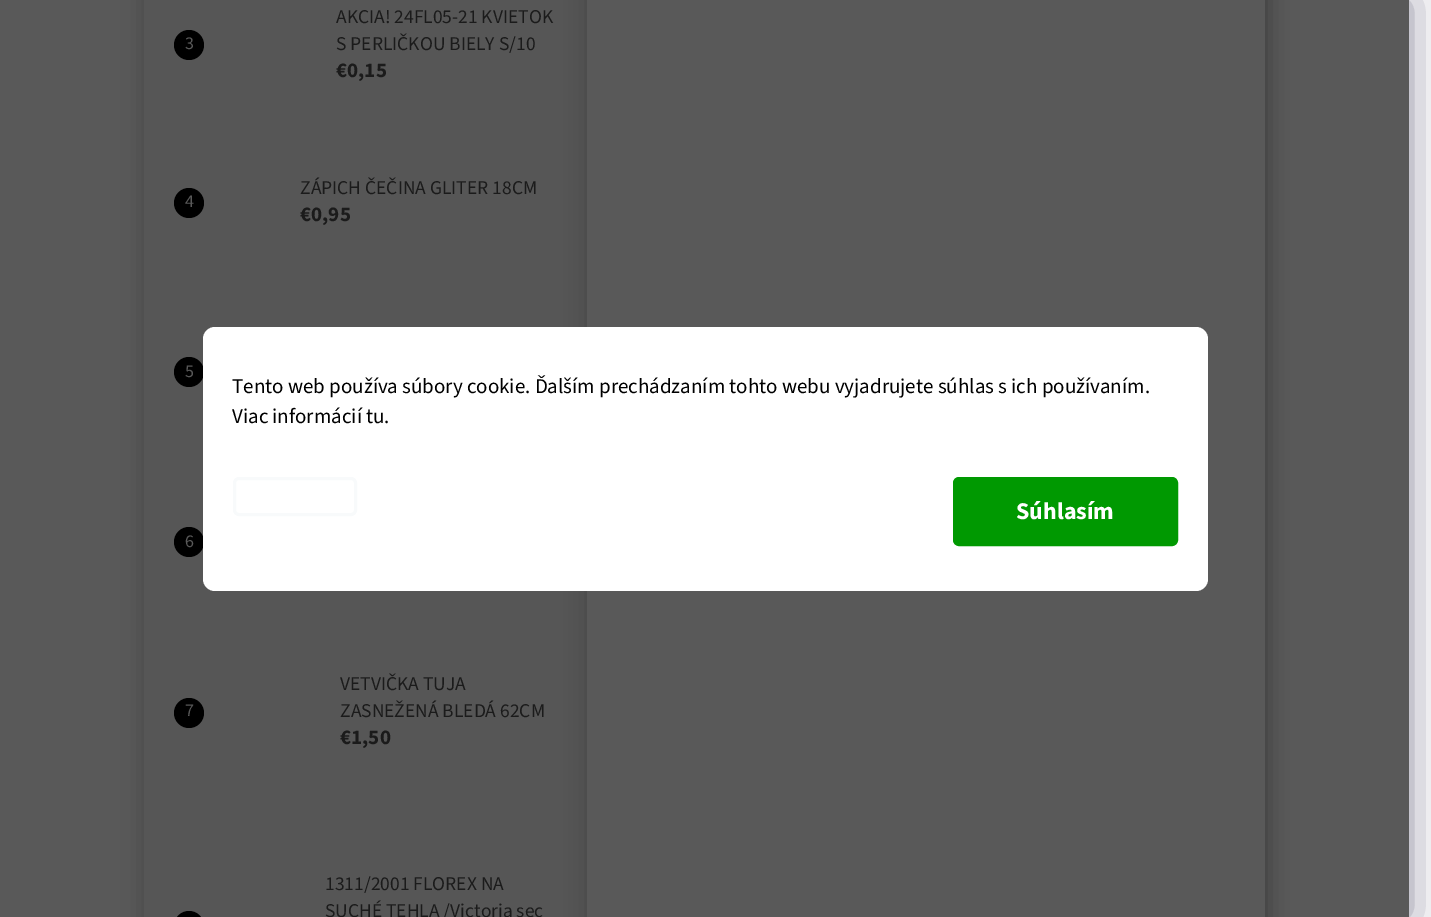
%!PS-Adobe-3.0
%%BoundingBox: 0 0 1431 917
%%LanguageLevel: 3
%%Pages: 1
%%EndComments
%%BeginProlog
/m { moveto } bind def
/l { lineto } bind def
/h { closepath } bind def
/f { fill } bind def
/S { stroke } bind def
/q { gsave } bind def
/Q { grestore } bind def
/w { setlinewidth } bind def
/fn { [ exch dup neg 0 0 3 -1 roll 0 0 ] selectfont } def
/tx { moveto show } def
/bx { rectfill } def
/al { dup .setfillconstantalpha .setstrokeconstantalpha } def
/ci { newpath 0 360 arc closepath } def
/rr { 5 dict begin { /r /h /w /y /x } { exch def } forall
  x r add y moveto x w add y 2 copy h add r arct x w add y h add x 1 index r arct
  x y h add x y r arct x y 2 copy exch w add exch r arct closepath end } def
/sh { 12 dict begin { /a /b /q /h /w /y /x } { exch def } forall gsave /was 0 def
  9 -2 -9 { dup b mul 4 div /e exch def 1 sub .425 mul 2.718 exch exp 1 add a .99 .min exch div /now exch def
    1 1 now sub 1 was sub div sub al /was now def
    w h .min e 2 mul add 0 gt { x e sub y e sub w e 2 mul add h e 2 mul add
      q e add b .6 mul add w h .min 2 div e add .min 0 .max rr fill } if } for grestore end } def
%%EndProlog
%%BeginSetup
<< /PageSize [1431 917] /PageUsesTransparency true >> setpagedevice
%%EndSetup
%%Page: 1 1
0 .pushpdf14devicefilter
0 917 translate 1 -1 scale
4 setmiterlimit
1 setgray
0 0 1431 917 bx
q
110 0 m 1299 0 l 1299 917 l 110 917 l h 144 -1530 m 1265 -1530 l 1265 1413 l 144 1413 l h eoclip newpath
0 setgray
144 -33 1121 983 0 11 0.2 sh
Q
0.965 setgray
144 0 443 917 bx
0 setgray
189 45 15 ci f
/SourceSans3-Regular 18 fn
1 setgray
(3) 185 49 tx
/SourceSans3-Regular 19.5 fn
0.302 setgray
(AKCIA! 24FL05-21 KVIETOK) 336 23 tx
(S PERLIČKOU BIELY S/10) 336 50 tx
/SourceSans3-Bold 21 fn
(€0,15) 336 77 tx
0 setgray
189 203 15 ci f
/SourceSans3-Regular 18 fn
1 setgray
(4) 185 207 tx
/SourceSans3-Regular 19.5 fn
0.302 setgray
(ZÁPICH ČEČINA GLITER 18CM) 300 194 tx
/SourceSans3-Bold 21 fn
(€0,95) 300 221 tx
0 setgray
189 372 15 ci f
/SourceSans3-Regular 18 fn
1 setgray
(5) 185 377 tx
0 setgray
189 542 15 ci f
1 setgray
(6) 185 547 tx
0 setgray
189 713 15 ci f
1 setgray
(7) 185 716 tx
/SourceSans3-Regular 19.5 fn
0.302 setgray
(VETVIČKA TUJA) 340 690 tx
(ZASNEŽENÁ BLEDÁ 62CM) 340 717 tx
/SourceSans3-Bold 21 fn
(€1,50) 340 744 tx
/SourceSans3-Regular 19.5 fn
(1311/2001 FLOREX NA) 325 890 tx
(SUCHÉ TEHLA /Victoria sec) 325 917 tx
0 setgray
174 911 30 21 15 rr f
q
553 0 m 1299 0 l 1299 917 l 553 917 l h 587 -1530 m 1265 -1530 l 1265 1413 l 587 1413 l h eoclip newpath
587 -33 678 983 0 11 0.2 sh
Q
q
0 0 m 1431 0 l 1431 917 l 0 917 l h 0 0 m 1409 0 l 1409 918 l 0 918 l h eoclip newpath
0.106 0.098 0.224 setrgbcolor
0 0 1409 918 0 22.5 0.5 sh
Q
0.65 al
0 0 1409 917 bx
1 al
1 setgray
203 327 1005 264 12 rr f
/SourceSans3-Regular 21 fn
0 setgray
(Tento web používa súbory cookie. Ďalším prechádzaním tohto webu vyjadrujete súhlas s ich používaním.) 232 393 tx
(Viac informácií tu.) 232 423 tx
0.973 0.98 0.984 setrgbcolor
3 w
234.5 478.5 121 36 4.5 rr S
0 0.6 0.004 setrgbcolor
954.5 478.5 222 66 4.5 rr q f Q
S
/SourceSans3-Bold 24 fn
1 setgray
(Súhlasím) 1016 519 tx
.poppdf14devicefilter showpage
%%EOF
